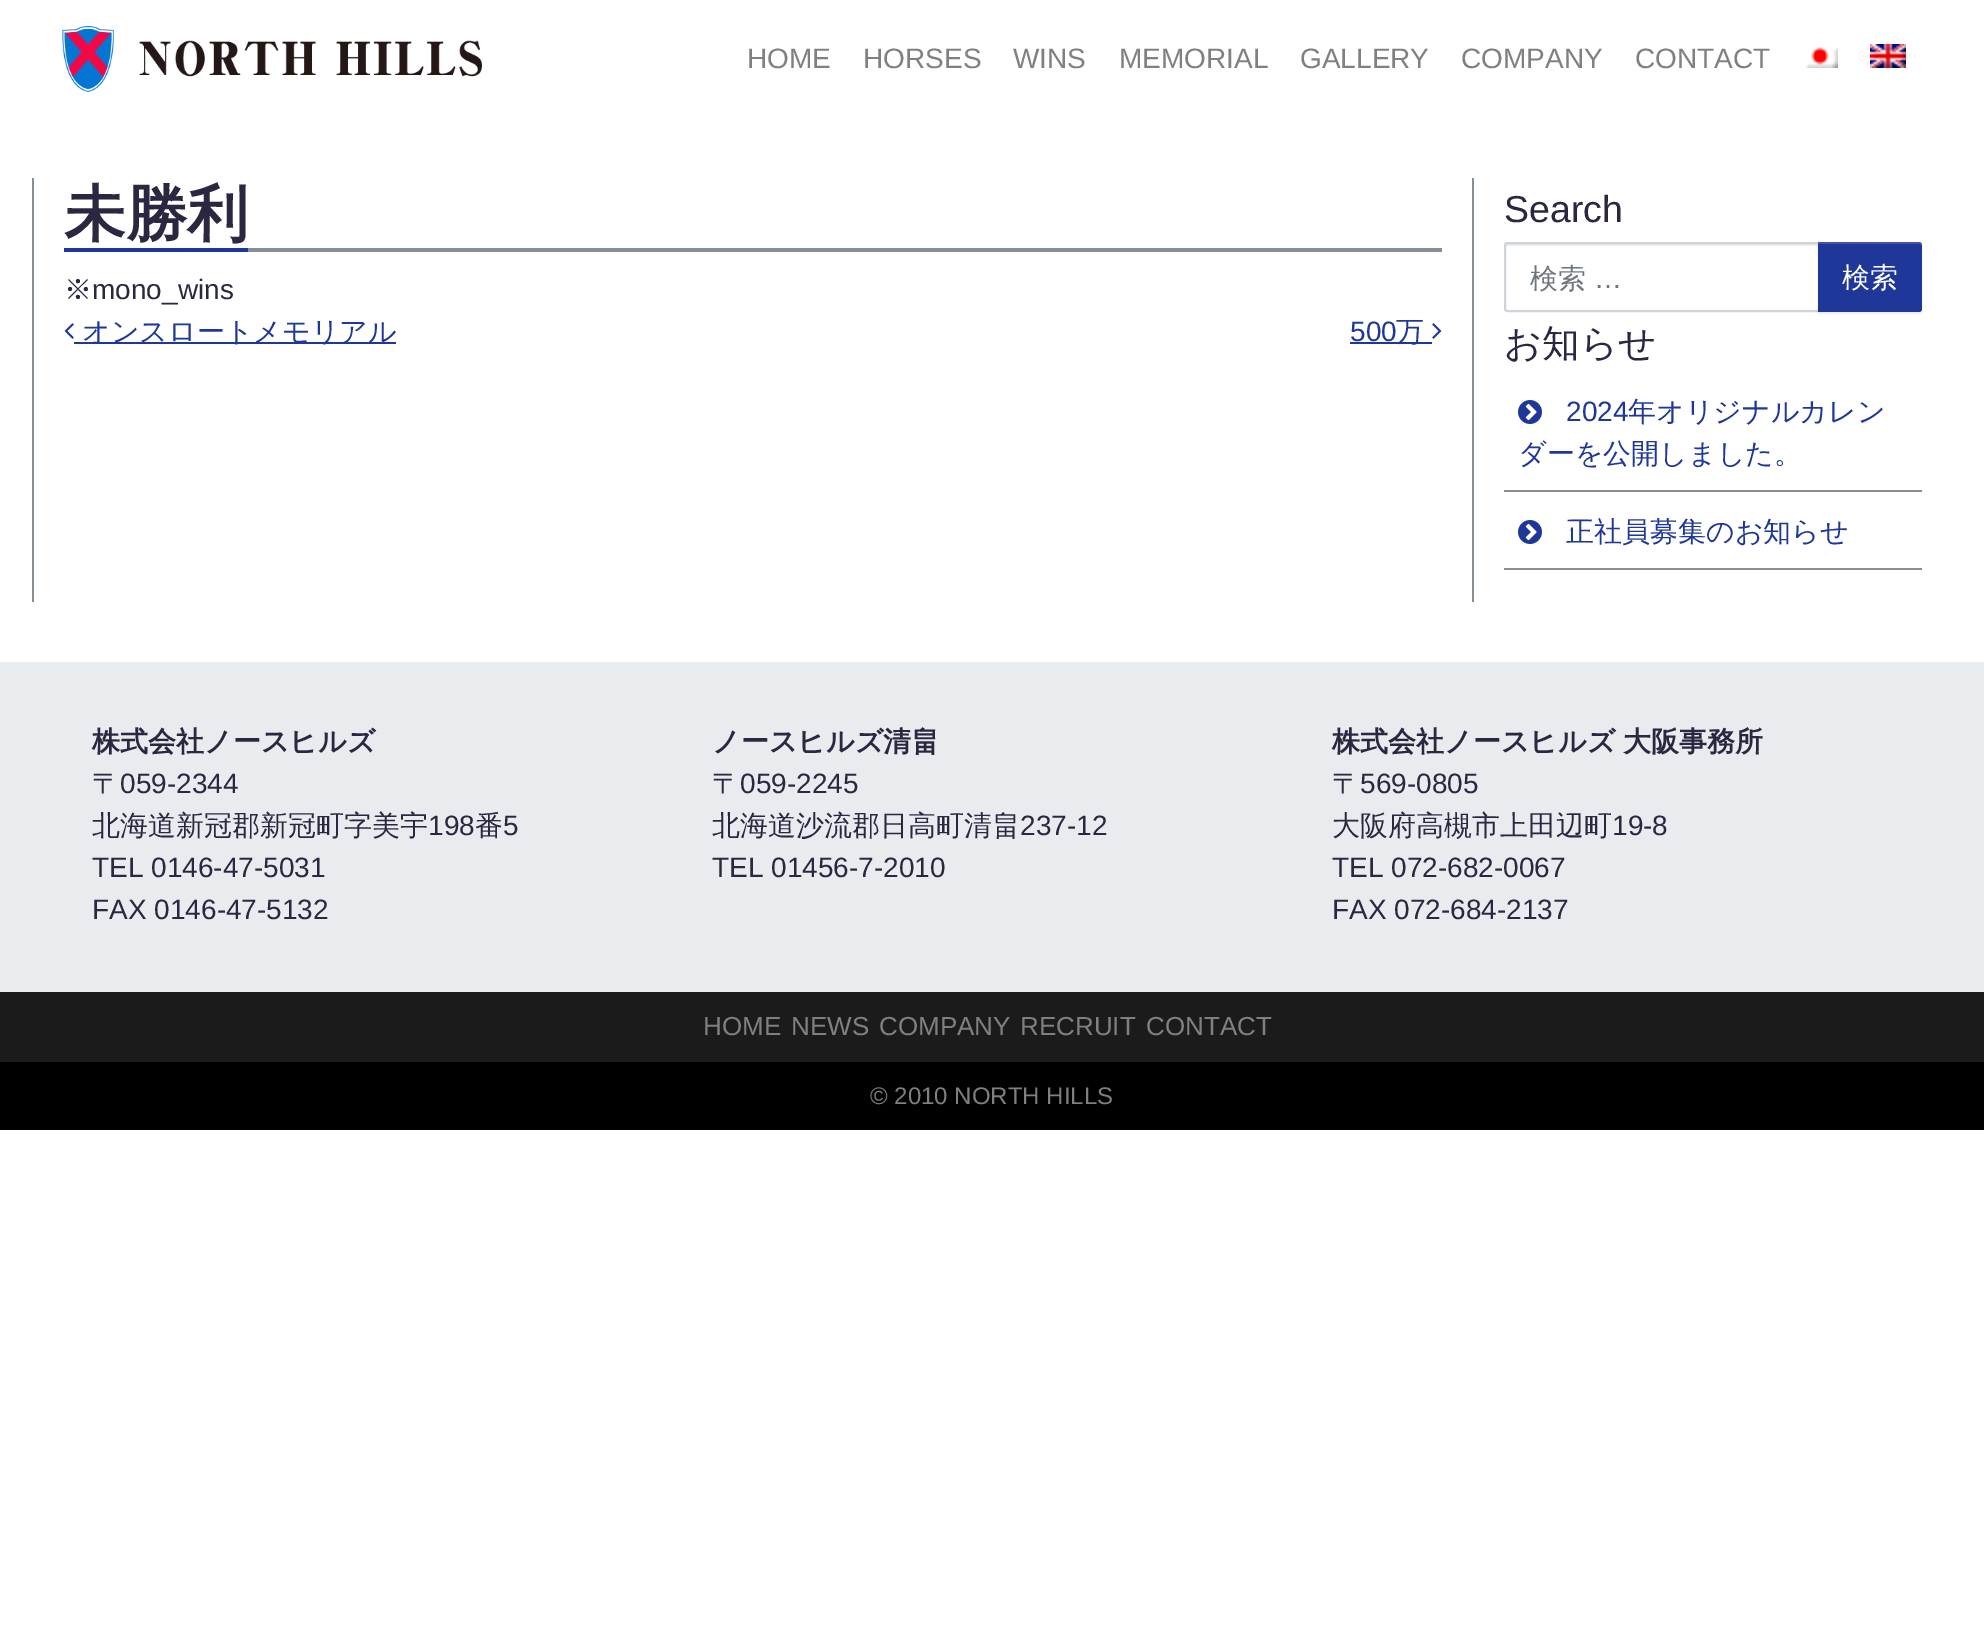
%!PS-Adobe-3.0
%%BoundingBox: 0 0 1984 1650
%%LanguageLevel: 3
%%Pages: 1
%%EndComments
%%BeginProlog
/m { moveto } bind def
/l { lineto } bind def
/c { curveto } bind def
/h { closepath } bind def
/f { fill } bind def
/S { stroke } bind def
/w { setlinewidth } bind def
/fn { [ exch dup neg 0 0 3 -1 roll 0 0 ] selectfont } def
/tx { moveto show } def
/bx { rectfill } def
/al { dup .setfillconstantalpha .setstrokeconstantalpha } def
/rr { 5 dict begin { /r /h /w /y /x } { exch def } forall
  x r add y moveto x w add y 2 copy h add r arct x w add y h add x 1 index r arct
  x y h add x y r arct x y 2 copy exch w add exch r arct closepath end } def
/sh { 12 dict begin { /a /b /q /h /w /y /x } { exch def } forall gsave /was 0 def
  9 -2 -9 { dup b mul 4 div /e exch def 1 sub .425 mul 2.718 exch exp 1 add a .99 .min exch div /now exch def
    1 1 now sub 1 was sub div sub al /was now def
    w h .min e 2 mul add 0 gt { x e sub y e sub w e 2 mul add h e 2 mul add
      q e add b .6 mul add w h .min 2 div e add .min 0 .max rr fill } if } for grestore end } def
/im { 5 dict begin { /h /w /y /x /name } { exch def } forall
  gsave x y translate w h scale
  w h 8 [w 0 0 h 0 0] name (r) file false 3 colorimage grestore end } def
%%EndProlog
%%BeginSetup
<< /PageSize [1984 1650] /PageUsesTransparency true >> setpagedevice
%%EndSetup
%%Page: 1 1
0 .pushpdf14devicefilter
0 1650 translate 1 -1 scale
4 setmiterlimit
1 setgray
0 0 1984 1650 bx
(image0.raw) 62 26 420 66 im
/LiberationSans-Regular 28 fn
0.502 setgray
(HOME) 747 68 tx
(HORSES) 863 68 tx
(WINS) 1013 68 tx
(MEMORIAL) 1119 68 tx
(GALLERY) 1300 68 tx
(COMPANY) 1461 68 tx
(CONTACT) 1635 68 tx
(image1.raw) 1805 47 33 21 im
(image2.raw) 1870 44 36 24 im
0.525 0.557 0.588 setrgbcolor
32 178 2 424 bx
/WenQuanYiZenHei-Bold 61.5 fn
0.169 0.153 0.255 setrgbcolor
(未勝利) 64 235 tx
0.118 0.216 0.6 setrgbcolor
64 248 184 4 bx
0.525 0.557 0.588 setrgbcolor
248 248 1194 4 bx
/WenQuanYiZenHei-Medium 28 fn
0.169 0.153 0.255 setrgbcolor
(※) 64 299 tx
/LiberationSans-Regular 28 fn
(mono_wins) 92 299 tx
(image3.raw) 64 323 10 16 im
0.118 0.216 0.6 setrgbcolor
74 342 322 2 bx
/WenQuanYiZenHei-Medium 28 fn
(オンスロートメモリアル) 82 341 tx
/LiberationSans-Regular 28 fn
(500) 1350 341 tx
1350 342 82 2 bx
/WenQuanYiZenHei-Medium 28 fn
(万) 1396 341 tx
(image4.raw) 1432 323 10 16 im
0.525 0.557 0.588 setrgbcolor
1472 178 2 424 bx
/LiberationSans-Regular 37.5 fn
0.169 0.153 0.255 setrgbcolor
(Search) 1504 222 tx
0.925 setgray
1507 246 m 1818 246 l 1818 244 l 1506 244 l 1506 247 l h f
0.808 0.831 0.855 setrgbcolor
2 w
1507 243 m 1819 243 l 1819 311 l 1507 311 l 1506 311 1505 310 1505 309 c 1505 245 l 1505 244 1506 243 1507 243 c h S
/WenQuanYiZenHei-Medium 28 fn
0.424 0.459 0.49 setrgbcolor
(検索) 1530 288 tx
/LiberationSans-Regular 28 fn
(…) 1594 288 tx
0 setgray
1818 244 104 70 3 1 0.07 sh
0.118 0.216 0.6 setrgbcolor
1818 242 m 1919 242 l 1920.5 242 1922 243.5 1922 245 c 1922 309 l 1922 310.5 1920.5 312 1919 312 c 1818 312 l h f
0.15 al
1 setgray
1818 244 m 1919 244 l 1921 244 1922 245 1922 247 c 1922 245 l 1922 243 1921 242 1919 242 c 1818 242 l h f
/WenQuanYiZenHei-Medium 28 fn
1 al
(検索) 1842 287 tx
/WenQuanYiZenHei-Medium 37.5 fn
0.169 0.153 0.255 setrgbcolor
(お知らせ) 1504 356 tx
0.525 0.557 0.588 setrgbcolor
1504 490 418 2 bx
(image5.raw) 1518 400 24 24 im
/LiberationSans-Regular 28 fn
0.118 0.216 0.6 setrgbcolor
(2024) 1566 421 tx
/WenQuanYiZenHei-Medium 28 fn
(年オリジナルカレン) 1628 421 tx
(ダーを公開しました。) 1518 463 tx
0.525 0.557 0.588 setrgbcolor
1504 568 418 2 bx
(image5.raw) 1518 520 24 24 im
0.118 0.216 0.6 setrgbcolor
(正社員募集のお知らせ) 1566 541 tx
0.914 0.925 0.937 setrgbcolor
0 662 1984 330 bx
/WenQuanYiZenHei-Bold 28 fn
0.169 0.153 0.255 setrgbcolor
(株式会社ノースヒルズ) 92 751 tx
/WenQuanYiZenHei-Medium 28 fn
(〒) 92 793 tx
/LiberationSans-Regular 28 fn
(059-2344) 120 793 tx
/WenQuanYiZenHei-Medium 28 fn
(北海道新冠郡新冠町字美宇) 92 835 tx
/LiberationSans-Regular 28 fn
(198) 428 835 tx
/WenQuanYiZenHei-Medium 28 fn
(番) 475 835 tx
/LiberationSans-Regular 28 fn
(5) 503 835 tx
(TEL 0146-47-5031) 92 877 tx
(FAX 0146-47-5132) 92 919 tx
/WenQuanYiZenHei-Bold 28 fn
(ノースヒルズ清畠) 712 751 tx
/WenQuanYiZenHei-Medium 28 fn
(〒) 712 793 tx
/LiberationSans-Regular 28 fn
(059-2245) 740 793 tx
/WenQuanYiZenHei-Medium 28 fn
(北海道沙流郡日高町清畠) 712 835 tx
/LiberationSans-Regular 28 fn
(237-12) 1020 835 tx
(TEL 01456-7-2010) 712 877 tx
/WenQuanYiZenHei-Bold 28 fn
1332 751 m -1 0 32 (株式会社ノースヒルズ 大阪事務所) widthshow
/WenQuanYiZenHei-Medium 28 fn
(〒) 1332 793 tx
/LiberationSans-Regular 28 fn
(569-0805) 1360 793 tx
/WenQuanYiZenHei-Medium 28 fn
(大阪府高槻市上田辺町) 1332 835 tx
/LiberationSans-Regular 28 fn
(19-8) 1612 835 tx
(TEL 072-682-0067) 1332 877 tx
(FAX 072-684-2137) 1332 919 tx
0.106 setgray
0 992 1984 70 bx
/LiberationSans-Regular 26 fn
0.502 setgray
(HOME) 703 1035 tx
(NEWS) 791 1035 tx
(COMPANY) 879 1035 tx
(RECRUIT) 1020 1035 tx
(CONTACT) 1146 1035 tx
0 setgray
0 1062 1984 68 bx
/LiberationSans-Regular 24 fn
0.502 setgray
(© 2010 NORTH HILLS) 870 1104 tx
.poppdf14devicefilter showpage
%%EOF
